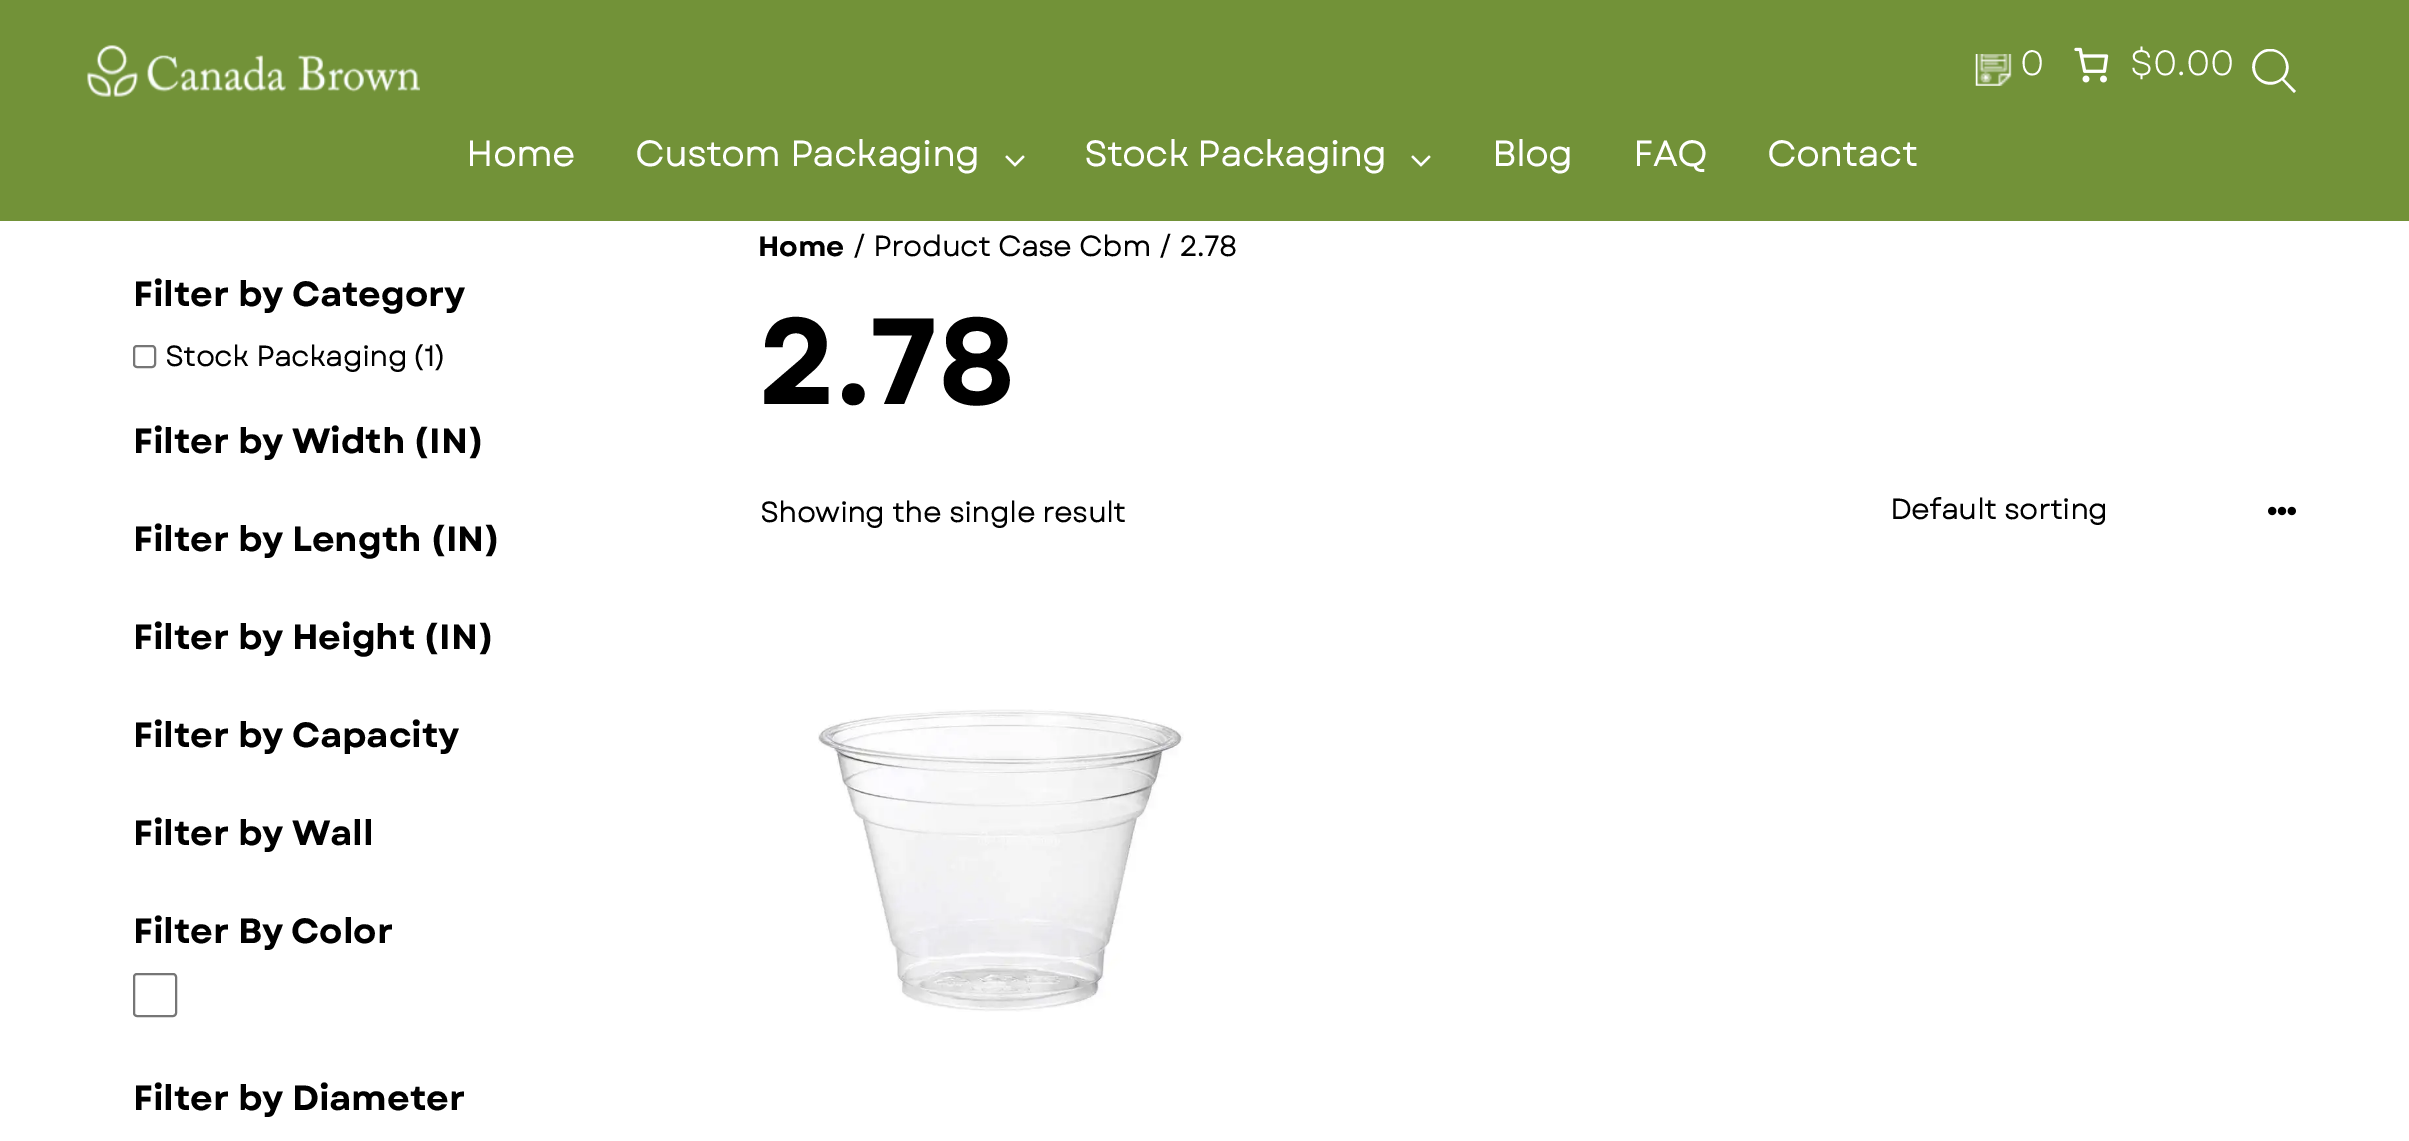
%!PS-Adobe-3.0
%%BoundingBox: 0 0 2409 1141
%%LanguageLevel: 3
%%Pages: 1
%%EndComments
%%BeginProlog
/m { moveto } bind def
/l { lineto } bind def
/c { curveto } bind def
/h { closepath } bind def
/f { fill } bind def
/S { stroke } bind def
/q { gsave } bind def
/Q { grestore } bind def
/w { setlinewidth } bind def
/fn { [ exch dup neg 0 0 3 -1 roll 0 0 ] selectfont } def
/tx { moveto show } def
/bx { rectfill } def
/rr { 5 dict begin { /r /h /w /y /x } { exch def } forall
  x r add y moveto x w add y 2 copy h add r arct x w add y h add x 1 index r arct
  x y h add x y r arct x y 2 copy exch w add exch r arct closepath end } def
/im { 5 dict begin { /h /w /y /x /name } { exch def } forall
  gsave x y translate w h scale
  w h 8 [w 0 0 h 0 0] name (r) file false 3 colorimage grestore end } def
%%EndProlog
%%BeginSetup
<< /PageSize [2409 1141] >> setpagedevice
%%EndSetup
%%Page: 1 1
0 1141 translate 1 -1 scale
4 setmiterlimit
1 setgray
0 0 2409 1141 bx
0.447 0.573 0.22 setrgbcolor
0 0 2409 221 bx
(image0.raw) 87 45 333 52 im
(image1.raw) 1975 54 37 32 im
/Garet-Regular 35 fn
1 setgray
(0) 2020 75 tx
(image2.raw) 2074 47 35 36 im
($0.00) 2130 75 tx
q
2252 49 44 44 rectclip
2296 91 m 2284 79 l 2299 62 2274 38 2258 54 c 2241 71 2265 95 2282 80 c 2294 93 l h 2255 67 m 2255 46 2286 46 2286 67 c 2286 87 2255 87 2255 67 c h f
Q
/Garet-Bold 35 fn
(Home) 466 166 tx
(Custom Packaging) 635 166 tx
(image3.raw) 1005 155 20 12 im
(Stock Packaging) 1084 166 tx
(image3.raw) 1411 155 20 12 im
(Blog) 1492 166 tx
(FAQ) 1633 166 tx
(Contact) 1767 166 tx
/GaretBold-Bold 35 fn
0 setgray
(Filter by Category) 133 306 tx
0.463 setgray
2 w
134 346 21 21 3 rr S
/Garet-Bold 28 fn
0 setgray
(Stock Packaging) 165 366 tx
(\(1\)) 412 366 tx
/GaretBold-Bold 35 fn
(Filter by Width \(IN\)) 133 453 tx
(Filter by Length \(IN\)) 133 551 tx
(Filter by Height \(IN\)) 133 649 tx
(Filter by Capacity) 133 747 tx
(Filter by Wall) 133 845 tx
(Filter By Color) 133 943 tx
0.463 setgray
134 974 42 42 3 rr S
0 setgray
(Filter by Diameter) 133 1110 tx
/GaretBold-Bold 28 fn
(Home) 758 256 tx
/Garet-Bold 28 fn
(/ Product Case Cbm / 2.78) 852 256 tx
/GaretBold-Bold 122.5 fn
(2.78) 758 404 tx
/Garet-Bold 28 fn
(Showing the single result) 760 522 tx
(Default sorting) 1890 519 tx
(image4.raw) 2268 506 28 10 im
(image5.raw) 818 709 366 303 im
showpage
%%EOF
